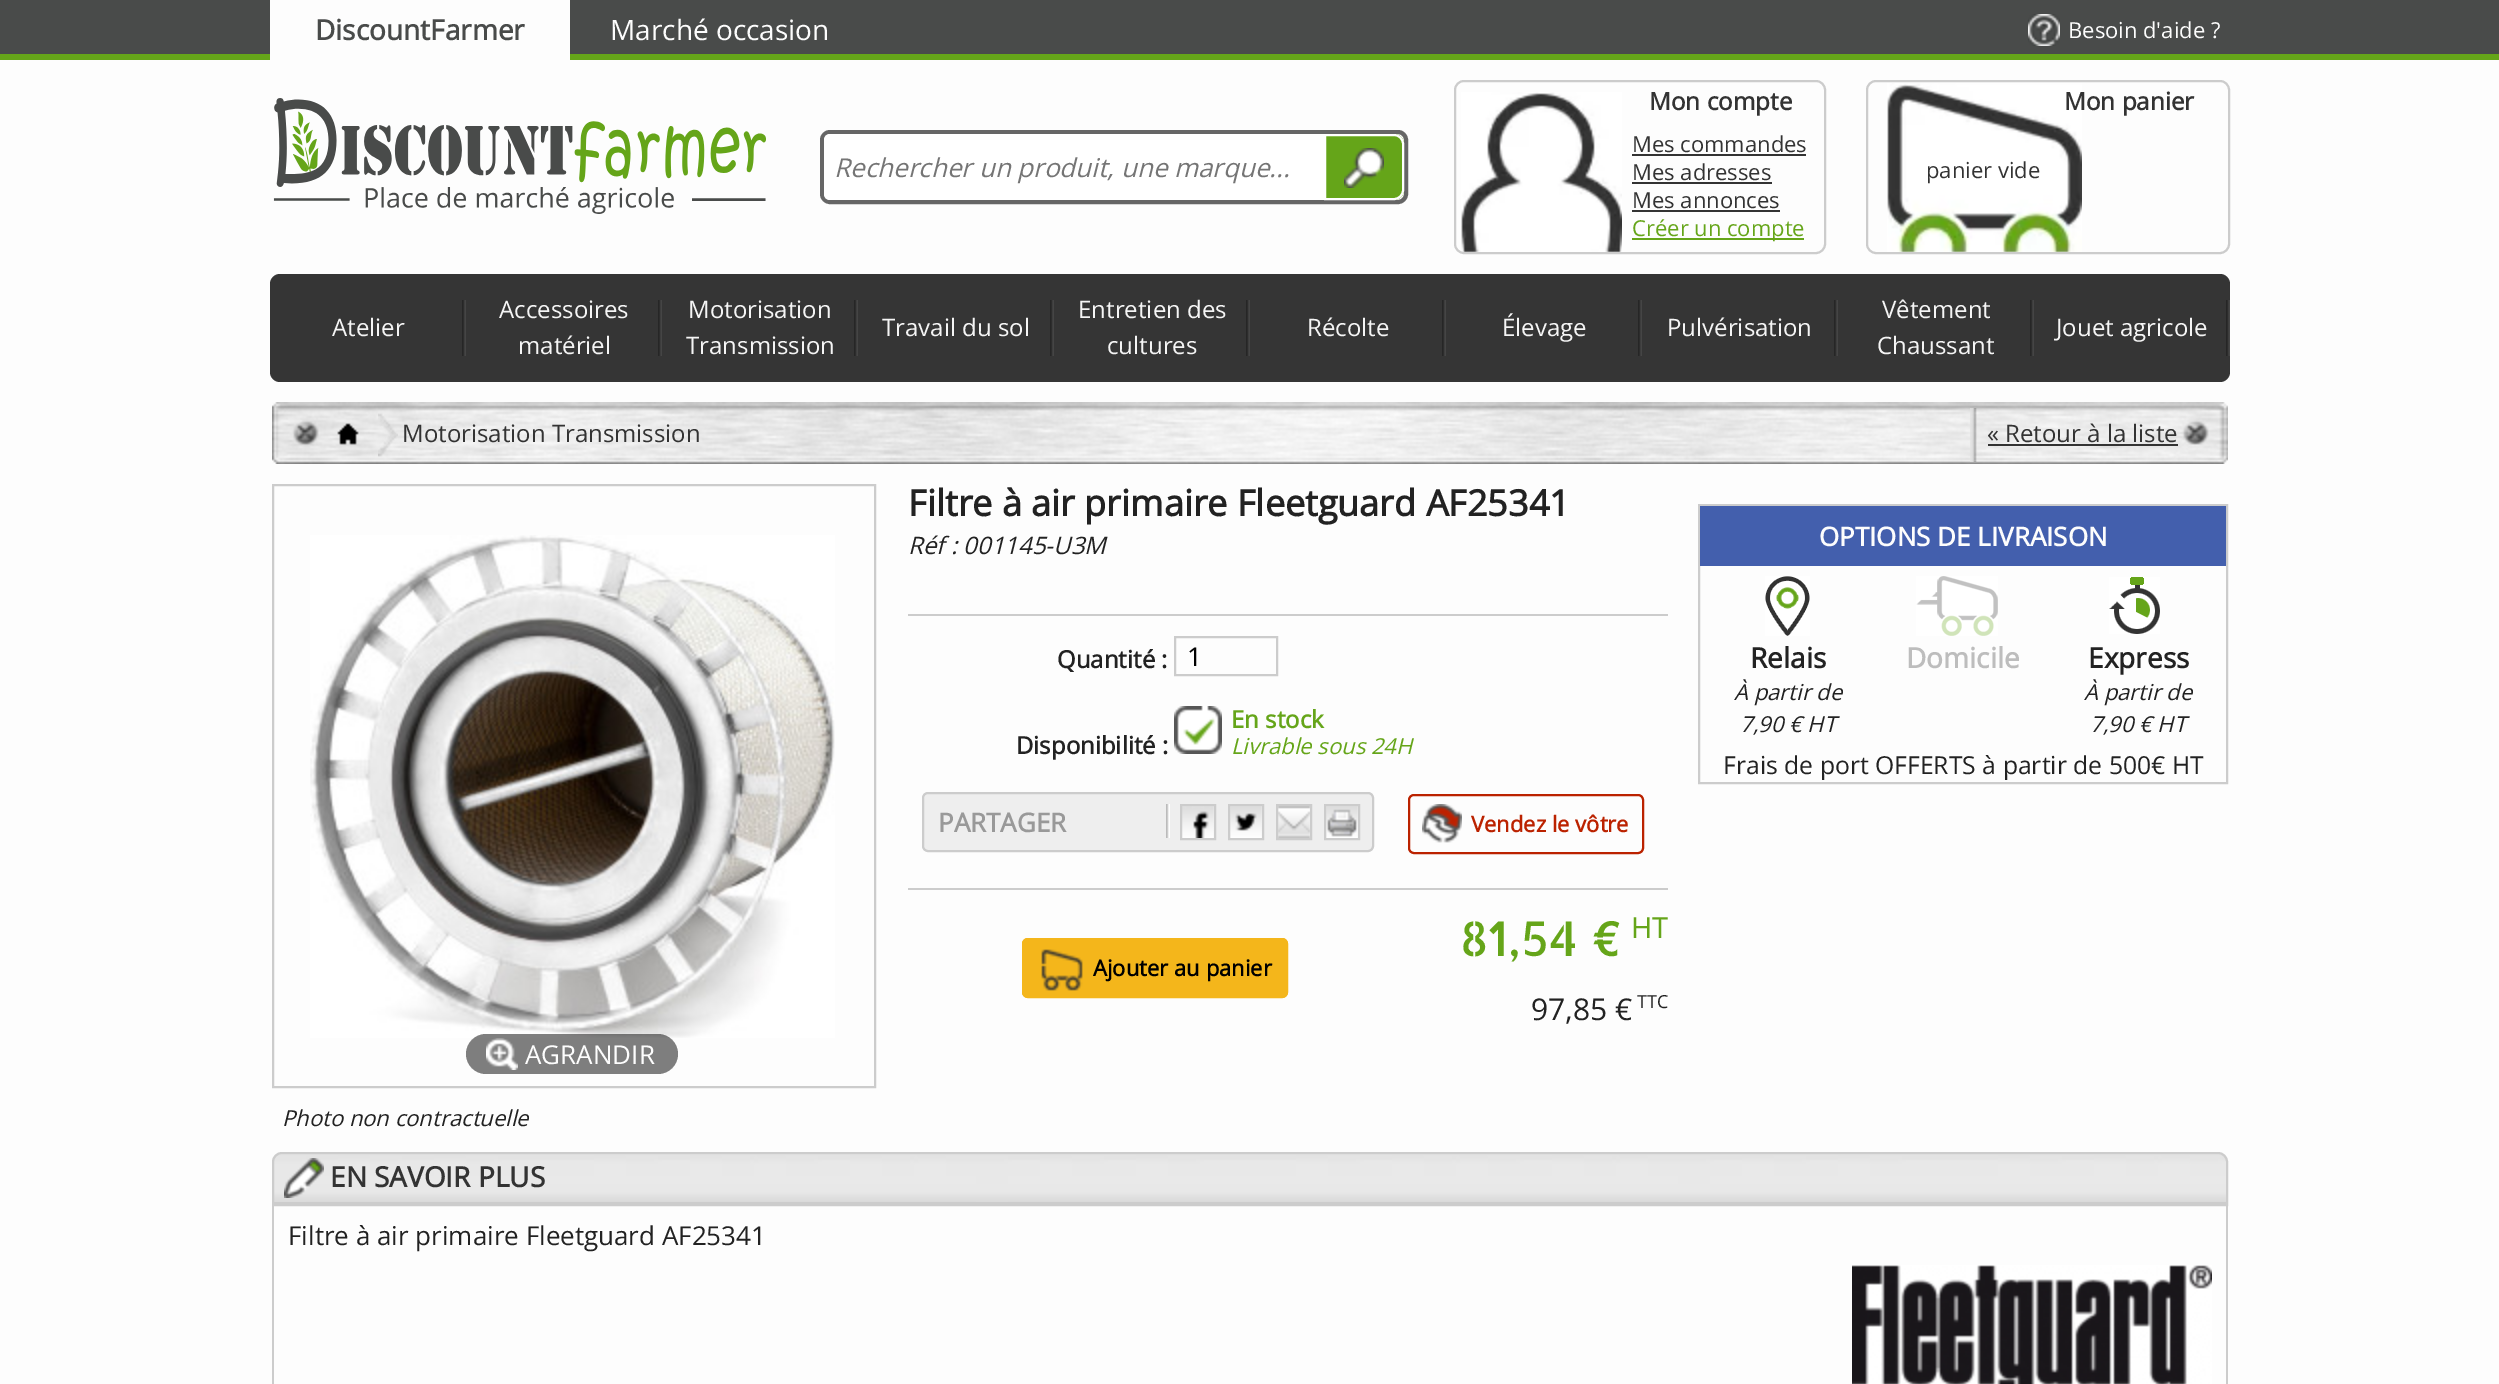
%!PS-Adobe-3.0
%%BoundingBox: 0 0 2499 1384
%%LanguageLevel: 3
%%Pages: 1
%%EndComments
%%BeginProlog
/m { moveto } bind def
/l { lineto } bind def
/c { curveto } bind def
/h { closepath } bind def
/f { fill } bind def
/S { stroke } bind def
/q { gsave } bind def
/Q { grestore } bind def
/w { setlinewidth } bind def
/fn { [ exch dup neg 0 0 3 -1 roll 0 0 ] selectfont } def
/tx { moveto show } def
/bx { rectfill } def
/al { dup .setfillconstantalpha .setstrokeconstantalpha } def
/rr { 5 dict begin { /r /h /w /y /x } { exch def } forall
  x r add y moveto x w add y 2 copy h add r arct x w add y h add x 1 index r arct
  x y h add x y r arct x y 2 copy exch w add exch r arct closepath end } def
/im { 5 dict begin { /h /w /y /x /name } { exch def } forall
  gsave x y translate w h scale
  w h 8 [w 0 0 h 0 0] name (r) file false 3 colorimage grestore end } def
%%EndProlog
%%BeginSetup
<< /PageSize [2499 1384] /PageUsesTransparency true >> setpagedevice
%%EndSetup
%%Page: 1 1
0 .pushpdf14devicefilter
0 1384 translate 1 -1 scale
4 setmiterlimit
0.992 setgray
0 0 2499 1384 bx
0.286 0.294 0.29 setrgbcolor
0 0 2499 54 bx
0.396 0.647 0.098 setrgbcolor
0 54 2499 6 bx
0.992 setgray
270 0 300 60 bx
/OpenSans-Bold 28 fn
0.286 0.294 0.29 setrgbcolor
(DiscountFarmer) 315 40 tx
/OpenSans-Regular 28 fn
0.992 setgray
(Marché occasion) 610 40 tx
(image0.raw) 2028 14 32 32 im
/OpenSans-Regular 22 fn
(Besoin d'aide ?) 2068 38 tx
(image1.raw) 273 98 493 116 im
0.4 setgray
4 w
822 132 584 70 8 rr S
1 setgray
830 134 m 1324 134 l 1324 200 l 830 200 l 826.5 200 824 197.5 824 194 c 824 140 l 824 136.5 826.5 134 830 134 c h f
/OpenSans-Italic 26 fn
0.459 setgray
(Rechercher un produit, une marque...) 834 177 tx
0.396 0.647 0.098 setrgbcolor
1324 134 m 1394 134 l 1399.5 134 1404 138.5 1404 144 c 1404 190 l 1404 195.5 1399.5 200 1394 200 c 1324 200 l h f
(image2.raw) 1344 148 40 40 im
1 setgray
2 w
1325 135 m 1394 135 l 1399 135 1403 139 1403 144 c 1403 190 l 1403 195 1399 199 1394 199 c 1325 199 l h S
(image3.raw) 1461 92 161 160 im
0.8 setgray
1455 81 370 172 9 rr S
/OpenSans-Bold 24.25 fn
0.2 setgray
(Mon compte) 1649 110 tx
/OpenSans-Regular 22 fn
(Mes commandes) 1632 152 tx
1632 154 174 2 bx
(Mes adresses) 1632 180 tx
1632 182 140 2 bx
(Mes annonces) 1632 208 tx
1632 210 148 2 bx
0.396 0.647 0.098 setrgbcolor
1632 238 172 2 bx
(Créer un compte) 1632 236 tx
(image4.raw) 1887 83 195 169 im
0.8 setgray
1867 81 362 172 9 rr S
/OpenSans-Bold 24.25 fn
0.2 setgray
(Mon panier) 2064 110 tx
/OpenSans-Regular 22 fn
(panier vide) 1926 178 tx
0.208 setgray
270 274 1960 108 10 rr f
(image5.raw) 462 300 4 56 im
/OpenSans-Regular 24 fn
0.961 setgray
(Atelier) 332 336 tx
(image5.raw) 658 300 4 56 im
(Accessoires) 499 318 tx
(matériel) 518 354 tx
(image5.raw) 854 300 4 56 im
(Motorisation) 688 318 tx
(Transmission) 686 354 tx
(image5.raw) 1050 300 4 56 im
(Travail du sol) 882 336 tx
(image5.raw) 1246 300 4 56 im
(Entretien des) 1078 318 tx
(cultures) 1107 354 tx
(image5.raw) 1442 300 4 56 im
(Récolte) 1307 336 tx
(image5.raw) 1638 300 4 56 im
(Élevage) 1502 336 tx
(image5.raw) 1834 300 4 56 im
(Pulvérisation) 1667 336 tx
(image5.raw) 2030 300 4 56 im
(Vêtement) 1882 318 tx
(Chaussant) 1877 354 tx
(image5.raw) 2226 300 4 56 im
(Jouet agricole) 2056 336 tx
(image6.raw) 272 402 1956 62 im
(image7.raw) 337 423 22 22 im
(image8.raw) 378 413 20 44 im
0.2 setgray
(Motorisation Transmission) 402 442 tx
(image9.raw) 1970 408 7 54 im
(« Retour à la liste) 1987 442 tx
1988 444 190 2 bx
/OpenSans-Bold 36 fn
0.133 setgray
(Filtre à air primaire Fleetguard AF25341) 908 516 tx
/OpenSans-Italic 24 fn
(Réf : 001145-U3M) 908 554 tx
0.8 setgray
908 614 760 2 bx
/OpenSans-Bold 24 fn
0.133 setgray
(Quantité :) 1057 668 tx
0.8 setgray
1175 637 102 38 rectstroke
/OpenSans-Regular 26 fn
0 setgray
(1) 1187 666 tx
/OpenSans-Bold 24 fn
0.133 setgray
(Disponibilité :) 1016 754 tx
(image10.raw) 1174 706 48 48 im
0.396 0.647 0.098 setrgbcolor
(En stock) 1231 728 tx
/OpenSans-Italic 22 fn
(Livrable sous 24H) 1231 754 tx
0.933 setgray
923 793 450 58 5 rr q f Q
0.8 setgray
S
/OpenSans-Bold 26 fn
0.6 setgray
(PARTAGER) 938 832 tx
(image11.raw) 1166 804 4 34 im
(image12.raw) 1182 806 32 32 im
0.8 setgray
1181 805 34 34 rectstroke
(image13.raw) 1230 806 32 32 im
1229 805 34 34 rectstroke
(image14.raw) 1278 806 32 32 im
1277 805 34 34 rectstroke
(image15.raw) 1326 806 32 32 im
1325 805 34 34 rectstroke
(image16.raw) 1422 804 40 39 im
0.733 0.133 0 setrgbcolor
1409 795 234 58 5 rr S
/OpenSans-Bold 22 fn
(Vendez le vôtre) 1471 832 tx
0.8 setgray
908 888 760 2 bx
0.957 0.714 0.106 setrgbcolor
1022 938 266 60 6 rr f
(image17.raw) 1041 949 42 42 im
1023 939 264 58 5 rr S
0 setgray
(Ajouter au panier) 1093 976 tx
/AllertaStencil-Regular 48 fn
0.396 0.647 0.098 setrgbcolor
(81,54 €) 1460 956 tx
/OpenSans-Regular 29 fn
(HT) 1631 938 tx
/OpenSans-Regular 30 fn
0.133 setgray
(97,85 €) 1531 1020 tx
/OpenSans-Regular 18 fn
(TTC) 1637 1008 tx
0.8 setgray
1699 505 528 278 rectstroke
0.263 0.373 0.678 setrgbcolor
1700 506 526 60 bx
/OpenSans-Bold 26 fn
0.992 setgray
(OPTIONS DE LIVRAISON) 1819 546 tx
(image18.raw) 1765 576 45 60 im
(image19.raw) 1916 576 82 60 im
(image20.raw) 2109 577 51 57 im
/OpenSans-Bold 28 fn
0.133 setgray
(Relais) 1750 668 tx
/OpenSans-Italic 22 fn
(À partir de) 1734 700 tx
(7,90 € HT) 1740 732 tx
/OpenSans-Bold 28 fn
0.741 setgray
(Domicile) 1906 668 tx
0.133 setgray
(Express) 2088 668 tx
/OpenSans-Italic 22 fn
(À partir de) 2084 700 tx
(7,90 € HT) 2090 732 tx
/OpenSans-Regular 24.75 fn
(Frais de port OFFERTS à partir de 500€ HT) 1723 774 tx
0.8 setgray
273 485 602 602 rectstroke
(image21.raw) 310 535 525 503 im
0.5 al
0 setgray
466 1034 212 40 20 rr f
1 al
(image22.raw) 486 1038 32 32 im
/OpenSans-Regular 26 fn
0.992 setgray
(AGRANDIR) 525 1064 tx
/OpenSans-Italic 22 fn
0.133 setgray
(Photo non contractuelle) 282 1126 tx
(image23.raw) 272 1153 1956 49 im
0.8 setgray
282 1153 m 2218 1153 l 2223 1153 2227 1157 2227 1162 c 2227 1205 l 273 1205 l 273 1162 l 273 1157 277 1153 282 1153 c h S
272 1202 1956 2 bx
(image24.raw) 284 1158 40 40 im
/OpenSans-Bold 28 fn
0.2 setgray
(EN SAVOIR PLUS) 330 1187 tx
0.8 setgray
2226 1206 2 178 bx
272 1206 2 178 bx
/OpenSans-Regular 26 fn
0.133 setgray
(Filtre à air primaire Fleetguard AF25341) 288 1245 tx
(image25.raw) 1852 1265 360 119 im
.poppdf14devicefilter showpage
%%EOF
